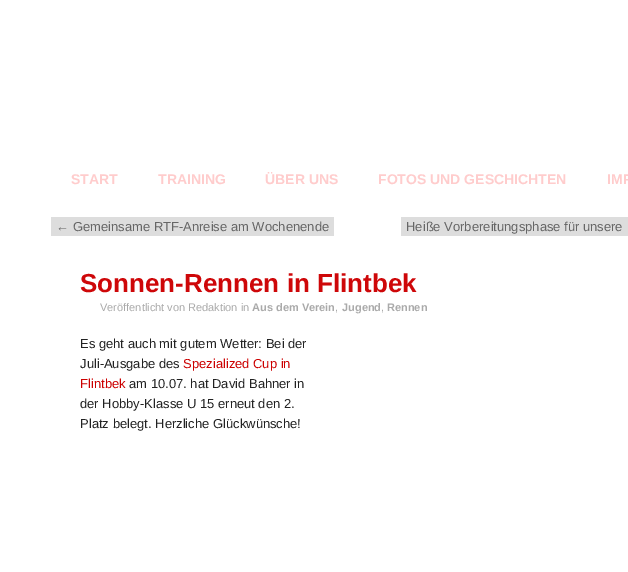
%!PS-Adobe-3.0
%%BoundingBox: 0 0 628 572
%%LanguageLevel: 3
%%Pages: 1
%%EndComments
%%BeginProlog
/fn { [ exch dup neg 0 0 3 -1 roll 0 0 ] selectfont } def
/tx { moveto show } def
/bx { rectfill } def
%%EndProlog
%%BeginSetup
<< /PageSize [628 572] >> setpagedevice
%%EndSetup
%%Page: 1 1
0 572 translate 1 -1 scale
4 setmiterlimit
1 setgray
0 0 628 572 bx
/LiberationSans-Bold 14 fn
1 0.8 0.8 setrgbcolor
(START) 71 184 tx
(TRAINING) 158 184 tx
(ÜBER UNS) 265 184 tx
(FOTOS UND GESCHICHTEN) 378 184 tx
(IMP) 607 184 tx
0.867 setgray
51 217 283 19 bx
/LiberationSans-Regular 13 fn
0.4 setgray
(← Gemeinsame RTF-Anreise am Wochenende) 56 231 tx
0.867 setgray
401 217 227 19 bx
0.4 setgray
(Heiße Vorbereitungsphase für unsere) 406 231 tx
/LiberationSans-Bold 26 fn
0.808 0.027 0.035 setrgbcolor
(Sonnen-Rennen in Flintbek) 80 292 tx
/LiberationSans-Regular 11 fn
0.667 setgray
(Veröffentlicht von Redaktion in) 100 311 tx
/LiberationSans-Bold 11 fn
(Aus dem Verein) 252 311 tx
/LiberationSans-Regular 11 fn
(,) 335 311 tx
/LiberationSans-Bold 11 fn
(Jugend) 342 311 tx
/LiberationSans-Regular 11 fn
(,) 381 311 tx
/LiberationSans-Bold 11 fn
(Rennen) 387 311 tx
/LiberationSans-Regular 13 fn
0.133 setgray
(Es geht auch mit gutem Wetter: Bei der) 80 348 tx
(Juli-Ausgabe des) 80 368 tx
0.8 0 0 setrgbcolor
(Spezialized Cup in) 183 368 tx
(Flintbek) 80 388 tx
0.133 setgray
(am 10.07. hat David Bahner in) 129 388 tx
(der Hobby-Klasse U 15 erneut den 2.) 80 408 tx
(Platz belegt. Herzliche Glückwünsche!) 80 428 tx
showpage
%%EOF
